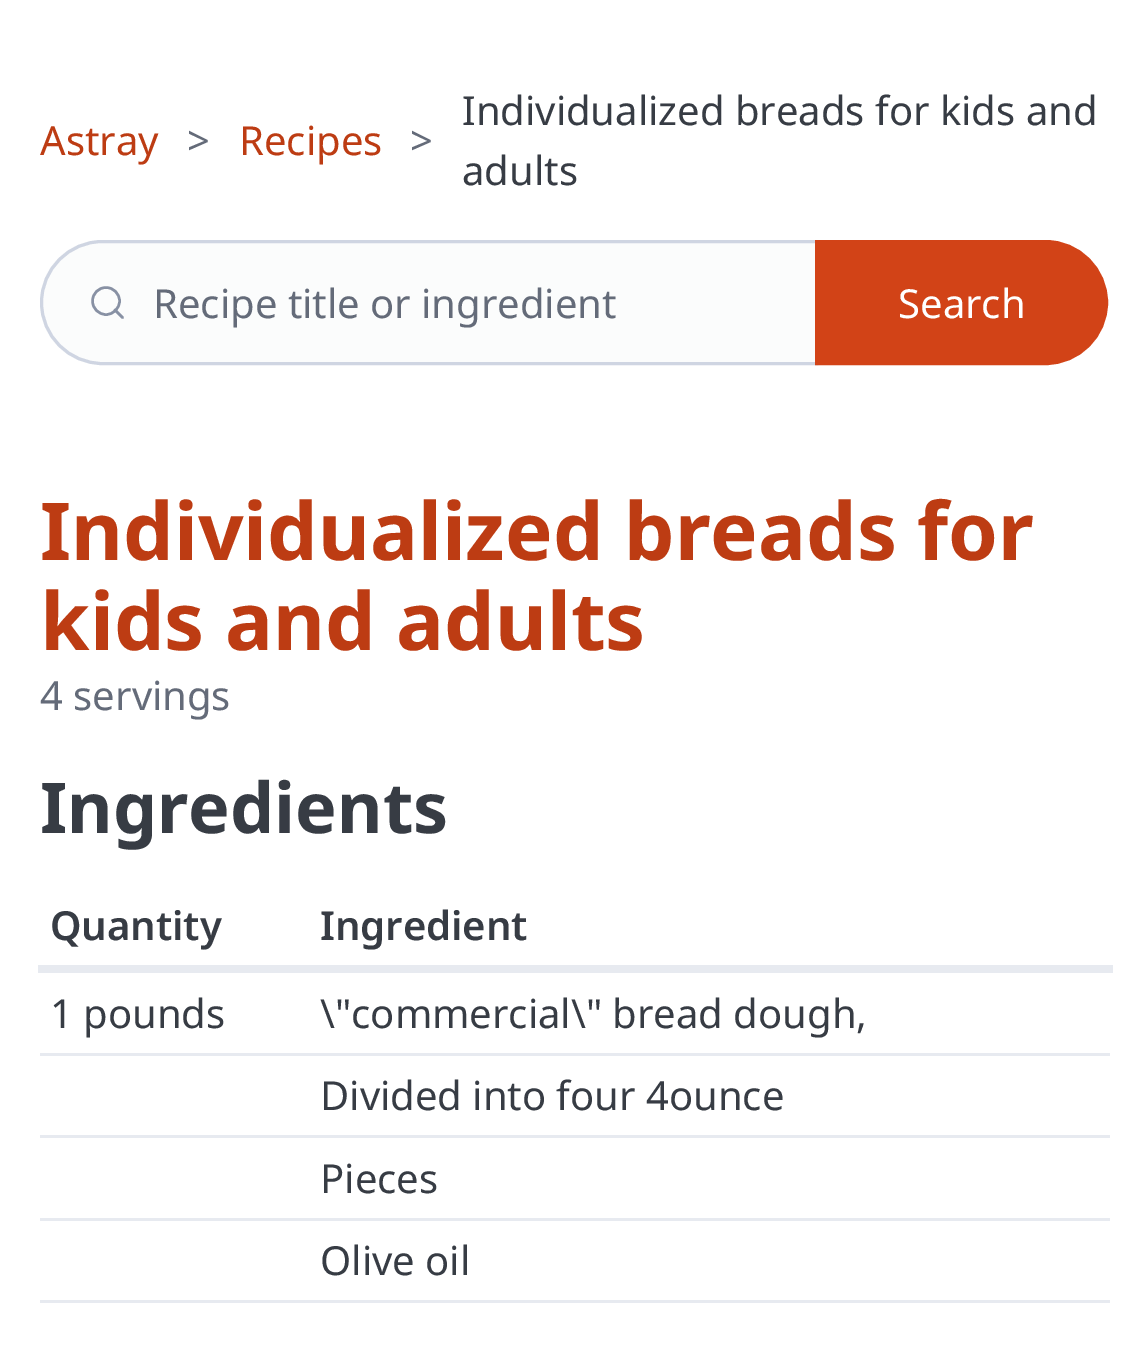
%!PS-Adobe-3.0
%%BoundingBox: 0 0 1147 1348
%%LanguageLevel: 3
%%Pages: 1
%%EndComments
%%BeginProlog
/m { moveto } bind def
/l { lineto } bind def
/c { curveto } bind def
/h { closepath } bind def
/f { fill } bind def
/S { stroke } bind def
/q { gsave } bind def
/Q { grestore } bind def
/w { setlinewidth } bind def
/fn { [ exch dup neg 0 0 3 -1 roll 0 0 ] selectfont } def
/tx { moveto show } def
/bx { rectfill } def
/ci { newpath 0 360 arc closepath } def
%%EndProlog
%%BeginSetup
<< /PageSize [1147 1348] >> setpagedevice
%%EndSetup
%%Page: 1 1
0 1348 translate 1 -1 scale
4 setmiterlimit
1 setgray
0 0 1147 1348 bx
/NotoSans-Regular 40 fn
0.741 0.235 0.075 setrgbcolor
(Astray) 40 155 tx
0.392 0.42 0.475 setrgbcolor
(>) 187 155 tx
0.741 0.235 0.075 setrgbcolor
(Recipes) 239 155 tx
0.392 0.42 0.475 setrgbcolor
(>) 410 155 tx
0.216 0.235 0.267 setrgbcolor
(Individualized breads for kids and) 462 125 tx
(adults) 462 185 tx
0.984 0.988 0.988 setrgbcolor
102.5 240 m 818 240 l 818 365 l 102.5 365 l 68 365 40 337 40 302.5 c 40 268 68 240 102.5 240 c h f
0.533 0.569 0.643 setrgbcolor
2.5 w
106 301 13.5 ci S
1 setlinecap
1 setlinejoin
122.5 317.5 m 115 310 l S
0.812 0.835 0.886 setrgbcolor
3 w
0 setlinecap
0 setlinejoin
102.5 241.5 m 816.5 241.5 l 816.5 363.5 l 102.5 363.5 l 69 363.5 41.5 336 41.5 302.5 c 41.5 269 69 241.5 102.5 241.5 c h S
0.392 0.42 0.475 setrgbcolor
(Recipe title or ingredient) 153 318 tx
0.824 0.263 0.09 setrgbcolor
816.5 241.5 m 1045.5 241.5 l 1079 241.5 1106.5 269 1106.5 302.5 c 1106.5 336 1079 363.5 1045.5 363.5 c 816.5 363.5 l h q f Q
S
1 setgray
(Search) 898 318 tx
/NotoSans-Bold 80 fn
0.741 0.235 0.075 setrgbcolor
(Individualized breads for) 40 560 tx
(kids and adults) 40 650 tx
/NotoSans-Regular 40 fn
0.392 0.42 0.475 setrgbcolor
(4 servings) 40 710 tx
/NotoSans-Bold 70 fn
0.216 0.235 0.267 setrgbcolor
(Ingredients) 40 833 tx
/NotoSans-SemiBold 40 fn
(Quantity) 50 940 tx
0.906 0.918 0.941 setrgbcolor
38 965 1075 8 bx
0.216 0.235 0.267 setrgbcolor
(Ingredient) 320 940 tx
/NotoSans-Regular 40 fn
(1) 50 1028 tx
(pounds) 83 1028 tx
0.906 0.918 0.941 setrgbcolor
40 1053 1070 3 bx
0.216 0.235 0.267 setrgbcolor
(\\"commercial\\" bread dough,) 320 1028 tx
0.906 0.918 0.941 setrgbcolor
40 1135 1070 3 bx
0.216 0.235 0.267 setrgbcolor
(Divided into four 4ounce) 320 1110 tx
0.906 0.918 0.941 setrgbcolor
40 1218 1070 3 bx
0.216 0.235 0.267 setrgbcolor
(Pieces) 320 1193 tx
0.906 0.918 0.941 setrgbcolor
40 1300 1070 3 bx
0.216 0.235 0.267 setrgbcolor
(Olive oil) 320 1275 tx
showpage
%%EOF
